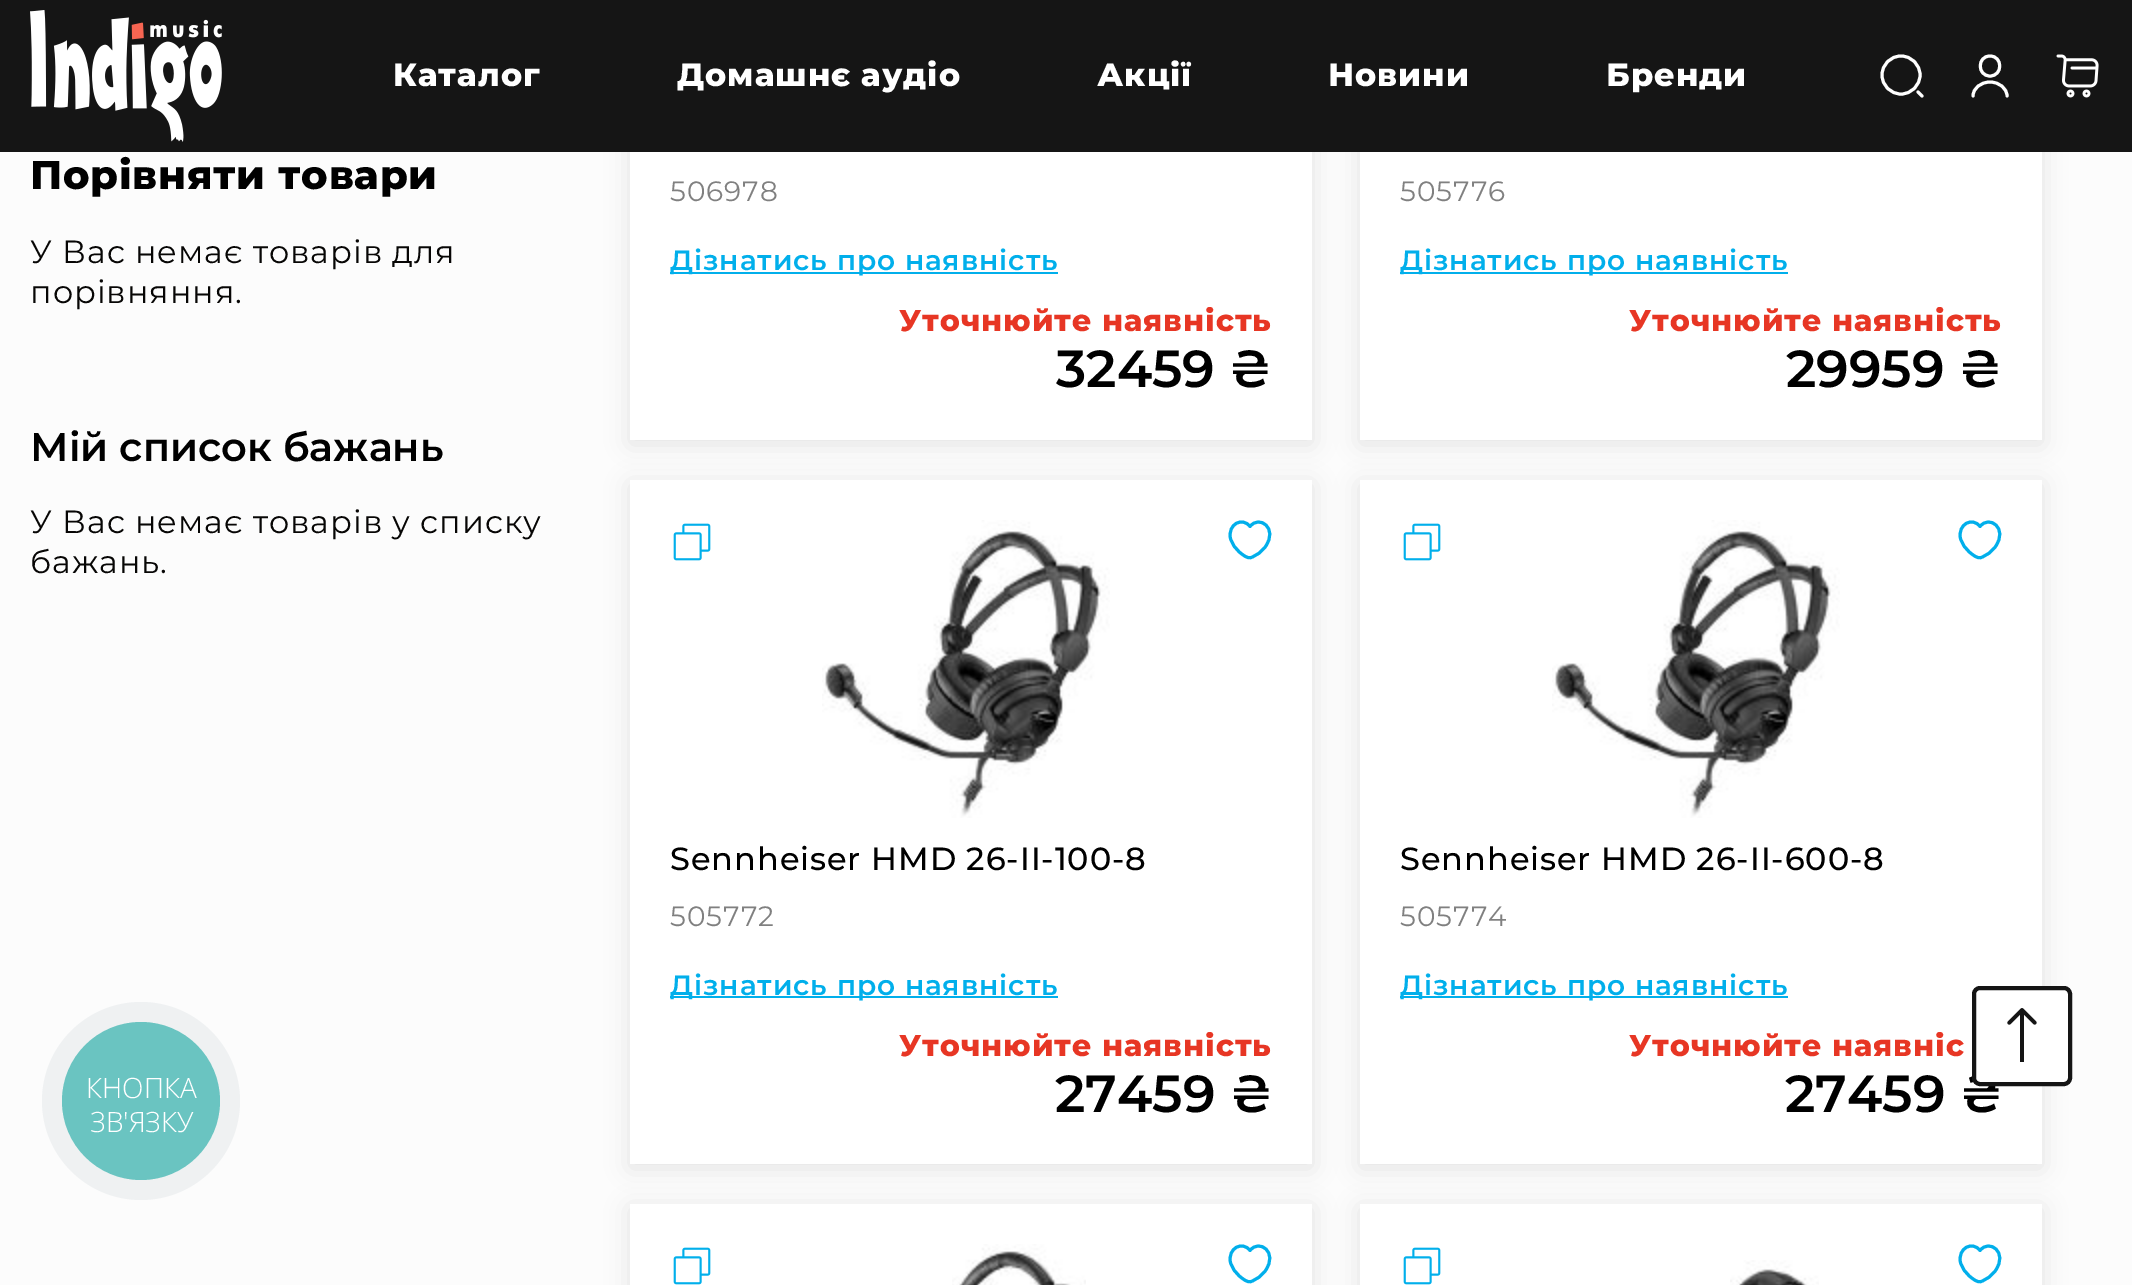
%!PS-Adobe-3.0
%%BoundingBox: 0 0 2132 1285
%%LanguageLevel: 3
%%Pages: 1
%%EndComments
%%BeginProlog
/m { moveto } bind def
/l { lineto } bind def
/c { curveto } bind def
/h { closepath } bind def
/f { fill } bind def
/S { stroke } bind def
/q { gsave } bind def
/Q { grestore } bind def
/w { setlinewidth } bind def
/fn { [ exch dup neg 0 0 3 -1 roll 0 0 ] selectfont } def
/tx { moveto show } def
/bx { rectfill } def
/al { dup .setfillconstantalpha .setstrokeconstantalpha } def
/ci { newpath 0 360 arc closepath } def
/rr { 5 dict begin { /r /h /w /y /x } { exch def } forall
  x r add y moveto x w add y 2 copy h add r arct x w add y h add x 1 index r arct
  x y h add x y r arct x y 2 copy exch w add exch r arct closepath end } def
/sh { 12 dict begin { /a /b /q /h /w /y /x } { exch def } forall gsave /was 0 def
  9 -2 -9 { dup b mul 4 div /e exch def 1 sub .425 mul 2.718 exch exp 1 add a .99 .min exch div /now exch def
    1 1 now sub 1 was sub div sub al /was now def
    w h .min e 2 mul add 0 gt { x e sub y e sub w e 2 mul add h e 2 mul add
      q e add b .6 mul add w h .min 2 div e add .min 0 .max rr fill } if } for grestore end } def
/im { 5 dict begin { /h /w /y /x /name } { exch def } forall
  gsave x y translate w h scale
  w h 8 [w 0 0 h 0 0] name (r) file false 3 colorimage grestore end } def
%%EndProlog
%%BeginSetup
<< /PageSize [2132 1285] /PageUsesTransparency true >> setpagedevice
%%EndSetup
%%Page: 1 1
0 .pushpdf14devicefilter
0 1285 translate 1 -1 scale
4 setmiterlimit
0.988 setgray
0 0 2132 1285 bx
0 setgray
630 -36 682 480 0 12 0.1 sh
1360 -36 682 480 0 12 0.1 sh
0.082 setgray
0 0 2132 152 bx
(image0.raw) 30 10 192 132 im
/Montserrat-ExtraBold 32 fn
1 setgray
393 86 m 0.95 0 (Каталог) ashow
677 86 m 0.95 0 (Домашнє аудіо) ashow
1097 86 m 0.95 0 (Акції) ashow
1328 86 m 0.95 0 (Новини) ashow
1606 86 m 0.95 0 (Бренди) ashow
3 w
1 setlinecap
1 setlinejoin
1901 94 m 1911.5 94 1920 85.5 1920 75 c 1920 64.5 1911.5 56 1901 56 c 1890.5 56 1882 64.5 1882 75 c 1882 85.5 1890.5 94 1901 94 c h 1922 96 m 1918 92 l S
1990 76 m 2003 76 2003 56 1990 56 c 1977 56 1977 76 1990 76 c h 2007 96 m 2007 88.5 1999.5 82 1990 82 c 1980.5 82 1973 88.5 1973 96 c S
(image1.raw) 2056 54 43 44 im
/Montserrat-ExtraBold 40 fn
0 setgray
30 189 m 0.75 0 (Порівняти товари) ashow
/Montserrat-Regular 32 fn
0.027 0.024 0.02 setrgbcolor
30 263 m 0.95 0 (У Вас немає товарів для) ashow
30 303 m 0.95 0 (порівняння.) ashow
/Montserrat-SemiBold 40 fn
0 setgray
(Мій список бажань) 30 461 tx
/Montserrat-Regular 32 fn
0.027 0.024 0.02 setrgbcolor
30 533 m 0.95 0 (У Вас немає товарів у списку) ashow
30 573 m 0.95 0 (бажань.) ashow
1 setgray
630 152 682 288 bx
/Montserrat-Regular 28 fn
0.502 setgray
670 201 m 0.95 0 (506978) ashow
0.004 0.686 0.922 setrgbcolor
670 272 388 2 bx
/Montserrat-SemiBold 28 fn
670 270 m 0.95 0 (Дізнатись про наявність) ashow
/Montserrat-ExtraBold 30 fn
0.906 0.212 0.141 setrgbcolor
899 331 m 0.95 0 (Уточнюйте наявність) ashow
/Montserrat-SemiBold 52 fn
0 setgray
(32459 ₴) 1056 387 tx
1 setgray
1360 152 682 288 bx
/Montserrat-Regular 28 fn
0.502 setgray
1400 201 m 0.95 0 (505776) ashow
0.004 0.686 0.922 setrgbcolor
1400 272 388 2 bx
/Montserrat-SemiBold 28 fn
1400 270 m 0.95 0 (Дізнатись про наявність) ashow
/Montserrat-ExtraBold 30 fn
0.906 0.212 0.141 setrgbcolor
1629 331 m 0.95 0 (Уточнюйте наявність) ashow
/Montserrat-SemiBold 52 fn
0 setgray
(29959 ₴) 1786 387 tx
630 484 682 684 0 12 0.1 sh
1 setgray
630 480 682 684 bx
(image2.raw) 673 523 38 38 im
(image3.raw) 822 520 288 298 im
0.004 0.686 0.922 setrgbcolor
1251 557.5 m 1247.5 559 1242.5 554.5 1240.5 553 c 1235.5 549 1232 544 1230.5 538.5 c 1227.5 524 1242.5 516.5 1250 526.5 c 1259 514.5 1278.5 528 1265.5 546.5 c 1262 551.5 1257 555.5 1251 557.5 c h S
/Montserrat-Medium 32 fn
0 setgray
670 870 m 0.95 0 (Sennheiser HMD 26-II-100-8) ashow
/Montserrat-Regular 28 fn
0.502 setgray
670 926 m 0.95 0 (505772) ashow
0.004 0.686 0.922 setrgbcolor
670 996 388 2 bx
/Montserrat-SemiBold 28 fn
670 995 m 0.95 0 (Дізнатись про наявність) ashow
/Montserrat-ExtraBold 30 fn
0.906 0.212 0.141 setrgbcolor
899 1056 m 0.95 0 (Уточнюйте наявність) ashow
/Montserrat-SemiBold 52 fn
0 setgray
(27459 ₴) 1055 1112 tx
1360 484 682 684 0 12 0.1 sh
1 setgray
1360 480 682 684 bx
(image2.raw) 1403 523 38 38 im
(image3.raw) 1552 520 288 298 im
0.004 0.686 0.922 setrgbcolor
1981 557.5 m 1977.5 559 1972.5 554.5 1970.5 553 c 1965.5 549 1962 544 1960.5 538.5 c 1957.5 524 1972.5 516.5 1980 526.5 c 1989 514.5 2008.5 528 1995.5 546.5 c 1992 551.5 1987 555.5 1981 557.5 c h S
/Montserrat-Medium 32 fn
0 setgray
1400 870 m 0.95 0 (Sennheiser HMD 26-II-600-8) ashow
/Montserrat-Regular 28 fn
0.502 setgray
1400 926 m 0.95 0 (505774) ashow
0.004 0.686 0.922 setrgbcolor
1400 996 388 2 bx
/Montserrat-SemiBold 28 fn
1400 995 m 0.95 0 (Дізнатись про наявність) ashow
/Montserrat-ExtraBold 30 fn
0.906 0.212 0.141 setrgbcolor
1629 1056 m 0.95 0 (Уточнюйте наявніс) ashow
/Montserrat-SemiBold 52 fn
0 setgray
(27459 ₴) 1785 1112 tx
630 1208 682 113 0 12 0.1 sh
1 setgray
630 1204 682 81 bx
(image2.raw) 673 1247 38 38 im
(image4.raw) 952 1244 134 41 im
0.004 0.686 0.922 setrgbcolor
1251 1281.5 m 1247.5 1283 1242.5 1278.5 1240.5 1277 c 1235.5 1273 1232 1268 1230.5 1262.5 c 1227.5 1248 1242.5 1240.5 1250 1250.5 c 1259 1238.5 1278.5 1252 1265.5 1270.5 c 1262 1275.5 1257 1279.5 1251 1281.5 c h S
0 setgray
1360 1208 682 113 0 12 0.1 sh
1 setgray
1360 1204 682 81 bx
(image2.raw) 1403 1247 38 38 im
(image5.raw) 1730 1260 89 25 im
0.004 0.686 0.922 setrgbcolor
1981 1281.5 m 1977.5 1283 1972.5 1278.5 1970.5 1277 c 1965.5 1273 1962 1268 1960.5 1262.5 c 1957.5 1248 1972.5 1240.5 1980 1250.5 c 1989 1238.5 2008.5 1252 1995.5 1270.5 c 1992 1275.5 1987 1279.5 1981 1281.5 c h S
1 setgray
1974 988 96 96 6 rr q f Q
0.082 setgray
4 w
0 setlinecap
0 setlinejoin
S
(image6.raw) 2007 1008 30 54 im
0.937 0.945 0.949 setrgbcolor
141 1101 99 ci f
0.416 0.769 0.757 setrgbcolor
141 1101 79 ci f
/OpenSans-Light 28 fn
1 setgray
(КНОПКА) 86 1098 tx
(ЗВ'ЯЗКУ) 90 1132 tx
.poppdf14devicefilter showpage
%%EOF
